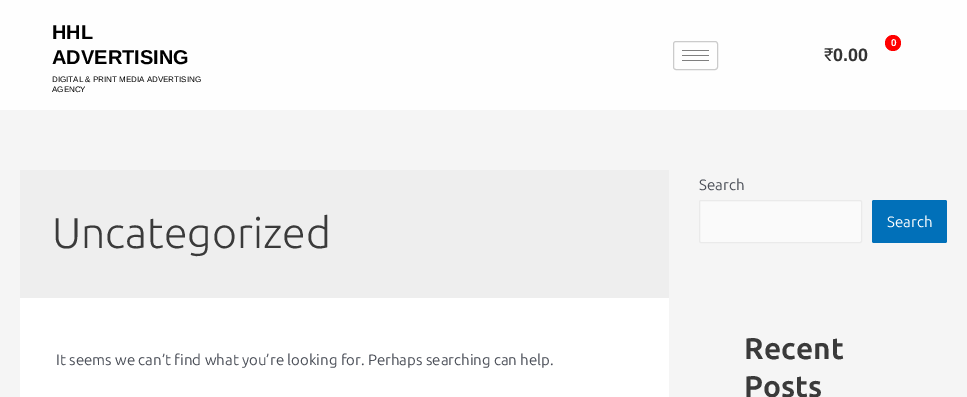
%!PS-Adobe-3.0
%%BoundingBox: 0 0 967 397
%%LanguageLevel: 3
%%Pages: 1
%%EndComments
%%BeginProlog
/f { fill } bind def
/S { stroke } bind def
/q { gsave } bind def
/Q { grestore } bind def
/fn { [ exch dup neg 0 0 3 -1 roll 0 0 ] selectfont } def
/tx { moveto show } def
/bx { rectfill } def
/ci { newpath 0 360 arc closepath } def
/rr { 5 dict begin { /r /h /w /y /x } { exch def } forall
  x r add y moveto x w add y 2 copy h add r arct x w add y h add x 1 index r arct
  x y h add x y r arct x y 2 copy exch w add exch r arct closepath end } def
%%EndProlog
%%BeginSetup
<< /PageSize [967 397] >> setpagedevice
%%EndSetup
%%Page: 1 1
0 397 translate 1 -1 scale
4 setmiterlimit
0.961 setgray
0 0 967 397 bx
0.996 setgray
0 0 967 110 bx
/LiberationSans-Bold 20 fn
0 setgray
(HHL) 52 39 tx
(ADVERTISING) 52 64 tx
/LiberationSans-Regular 8 fn
(DIGITAL & PRINT MEDIA ADVERTISING) 52 82 tx
(AGENCY) 52 92 tx
0.796 setgray
673.5 41.5 44 28 2.5 rr S
0.498 setgray
682 50 27 1 bx
682 55 27 1 bx
682 60 27 1 bx
1 0 0 setrgbcolor
893 43 8 ci f
/LiberationSans-Bold 10 fn
1 setgray
(0) 891 46 tx
/Roboto-Regular 18 fn
0.2 setgray
(₹) 824 61 tx
/LiberationSans-Bold 18 fn
(0.00) 833 61 tx
0.933 setgray
20 170 649 128 bx
/Ubuntu-Light 43 fn
0.227 setgray
(Uncategorized) 52 248 tx
1 setgray
20 298 649 99 bx
/Ubuntu-Regular 15 fn
0.294 0.31 0.345 setrgbcolor
(It seems we can’t find what you’re looking for. Perhaps searching can help.) 56 365 tx
(Search) 699 190 tx
0.98 setgray
699.5 200.5 162 42 1.5 rr q f Q
0.918 setgray
S
0.004 0.439 0.725 setrgbcolor
872 200 75 43 2 rr f
1 setgray
(Search) 887 227 tx
/Ubuntu-Bold 30 fn
0.227 setgray
(Recent) 744 359 tx
(Posts) 744 397 tx
showpage
%%EOF
